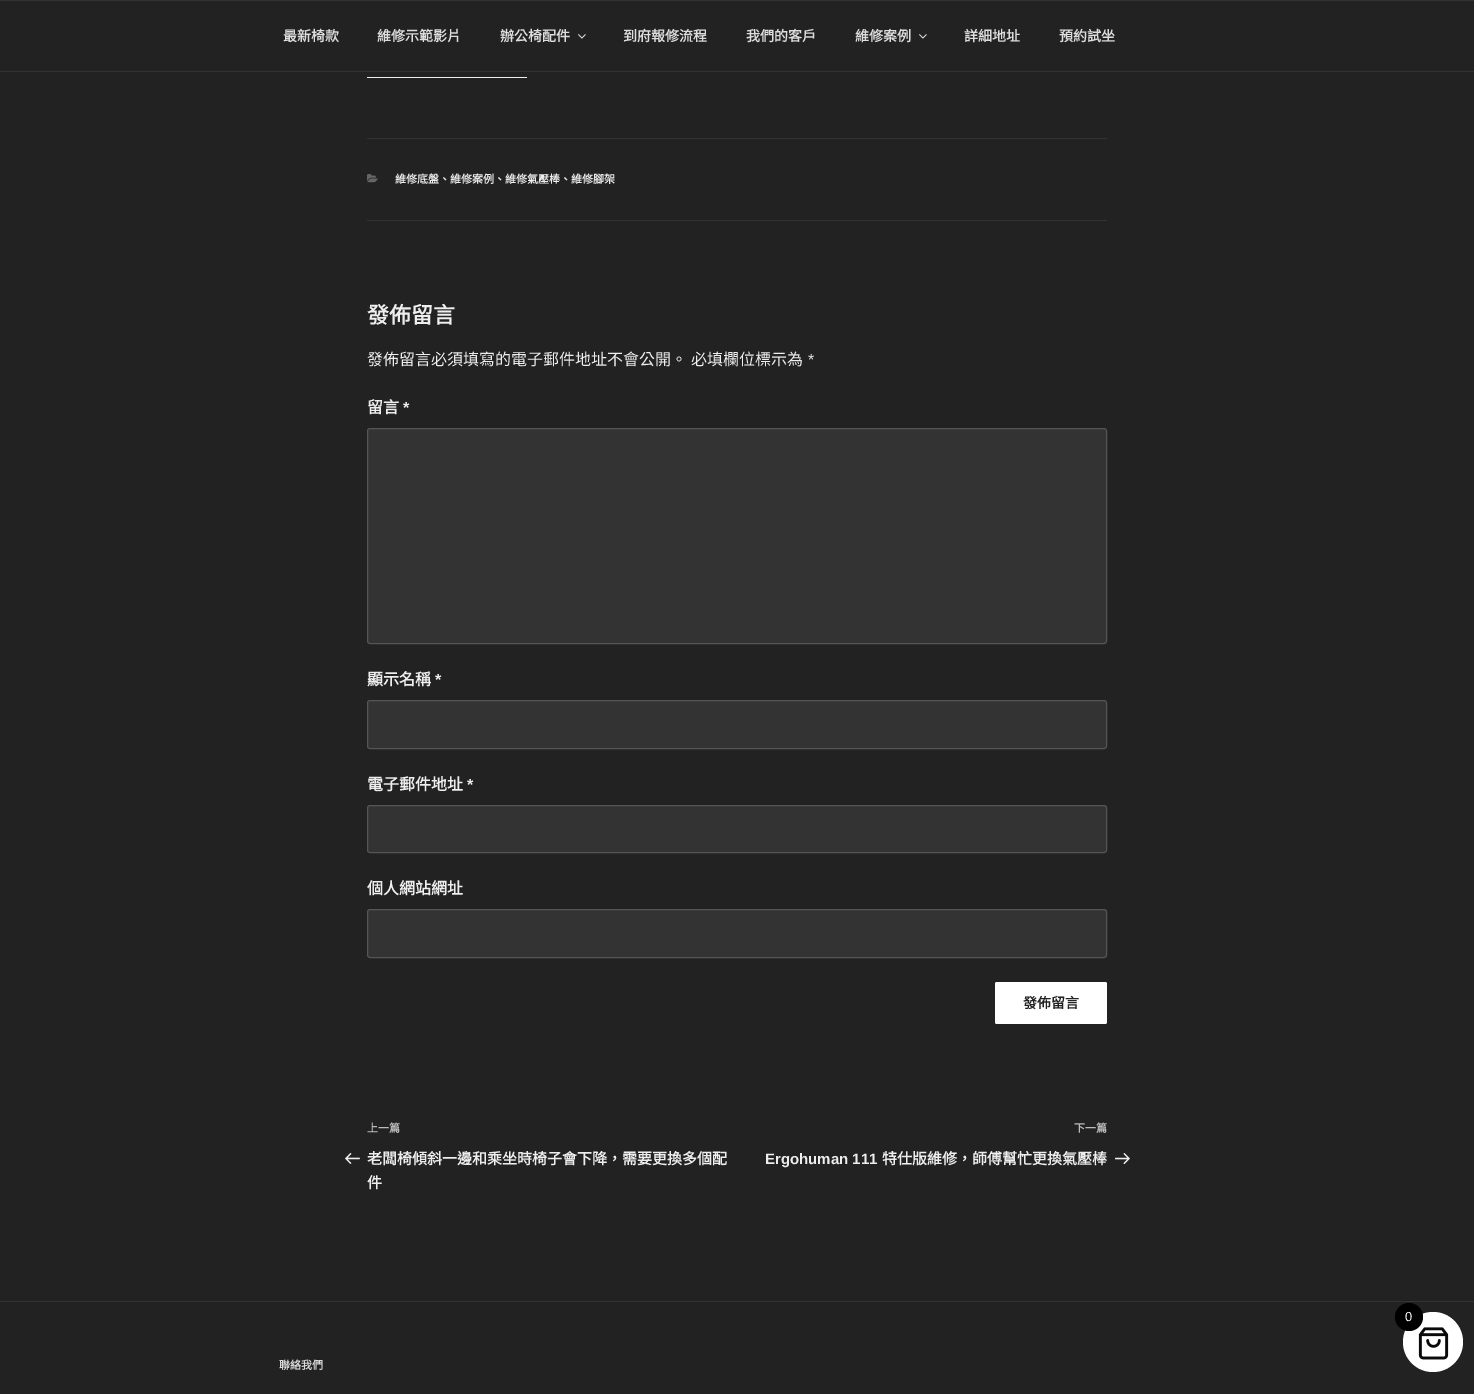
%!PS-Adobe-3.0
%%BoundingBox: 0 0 1474 1394
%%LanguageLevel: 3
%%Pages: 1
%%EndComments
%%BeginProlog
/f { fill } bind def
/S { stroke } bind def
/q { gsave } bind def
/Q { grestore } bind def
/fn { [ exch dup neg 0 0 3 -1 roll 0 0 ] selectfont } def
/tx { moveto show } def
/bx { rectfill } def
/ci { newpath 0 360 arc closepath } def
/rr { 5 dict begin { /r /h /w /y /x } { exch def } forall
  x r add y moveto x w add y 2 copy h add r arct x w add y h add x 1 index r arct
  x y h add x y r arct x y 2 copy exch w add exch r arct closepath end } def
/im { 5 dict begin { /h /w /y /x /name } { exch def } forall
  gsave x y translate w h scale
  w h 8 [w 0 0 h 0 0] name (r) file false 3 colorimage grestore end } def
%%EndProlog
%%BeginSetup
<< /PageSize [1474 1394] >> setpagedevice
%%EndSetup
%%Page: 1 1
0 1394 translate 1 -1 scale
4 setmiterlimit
0.133 setgray
0 0 1474 1394 bx
0.2 setgray
0 0 1474 1 bx
0 71 1474 1 bx
/NotoSansCJKTC-Bold 14 fn
0.867 setgray
(最新椅款) 283 41 tx
(維修示範影片) 377 41 tx
(辦公椅配件) 500 41 tx
(image0.raw) 578 34 8 5 im
(到府報修流程) 623 41 tx
(我們的客戶) 746 41 tx
(維修案例) 855 41 tx
(image0.raw) 919 34 8 5 im
(詳細地址) 964 41 tx
(預約試坐) 1059 41 tx
0.941 setgray
367 77 160 1 bx
0.2 setgray
367 138 740 1 bx
367 220 740 1 bx
(image1.raw) 367 174 11 9 im
/NotoSansCJKTC-Bold 11 fn
0.933 setgray
(維修底盤、維修案例、維修氣壓棒、維修腳架) 395 183 tx
/NotoSansCJKTC-Bold 22 fn
(發佈留言) 367 323 tx
/NotoSansCJKTC-Regular 16 fn
(發佈留言必須填寫的電子郵件地址不會公開。) 367 365 tx
(必填欄位標示為) 691 365 tx
/LiberationSans-Regular 16 fn
(*) 808 365 tx
/NotoSansCJKTC-Bold 16 fn
(留言) 367 413 tx
/LiberationSans-Bold 16 fn
(*) 403 413 tx
0.2 setgray
367.5 428.5 739 215 2.5 rr q f Q
0.333 setgray
S
/NotoSansCJKTC-Bold 16 fn
0.933 setgray
(顯示名稱) 367 685 tx
/LiberationSans-Bold 16 fn
(*) 435 685 tx
0.2 setgray
367.5 700.5 739 48 2.5 rr q f Q
0.333 setgray
S
/NotoSansCJKTC-Bold 16 fn
0.933 setgray
(電子郵件地址) 367 790 tx
/LiberationSans-Bold 16 fn
(*) 467 790 tx
0.2 setgray
367.5 805.5 739 47 2.5 rr q f Q
0.333 setgray
S
/NotoSansCJKTC-Bold 16 fn
0.933 setgray
(個人網站網址) 367 894 tx
0.2 setgray
367.5 909.5 739 48 2.5 rr q f Q
0.333 setgray
S
1 setgray
995 982 112 42 2 rr f
/NotoSansCJKTC-Bold 14 fn
0.133 setgray
(發佈留言) 1023 1008 tx
/NotoSansCJKTC-Bold 11 fn
0.733 setgray
(上一篇) 367 1132 tx
(image2.raw) 345 1153 15 11 im
/NotoSansCJKTC-Bold 15 fn
0.933 setgray
(老闆椅傾斜一邊和乘坐時椅子會下降，需要更換多個配) 367 1164 tx
(件) 367 1188 tx
/NotoSansCJKTC-Bold 11 fn
0.733 setgray
(下一篇) 1074 1132 tx
/LiberationSans-Bold 15 fn
0.933 setgray
(Ergohuman 111) 765 1164 tx
/NotoSansCJKTC-Bold 15 fn
(特仕版維修，師傅幫忙更換氣壓棒) 882 1164 tx
(image3.raw) 1115 1153 15 12 im
0.2 setgray
0 1301 1474 1 bx
/NotoSansCJKTC-Bold 11 fn
0.867 setgray
(聯絡我們) 279 1369 tx
1 setgray
1433 1342 30 ci f
(image4.raw) 1418 1327 31 33 im
0 setgray
1409 1317 14 ci f
/LiberationSans-Regular 13 fn
1 setgray
(0) 1405 1321 tx
showpage
%%EOF
